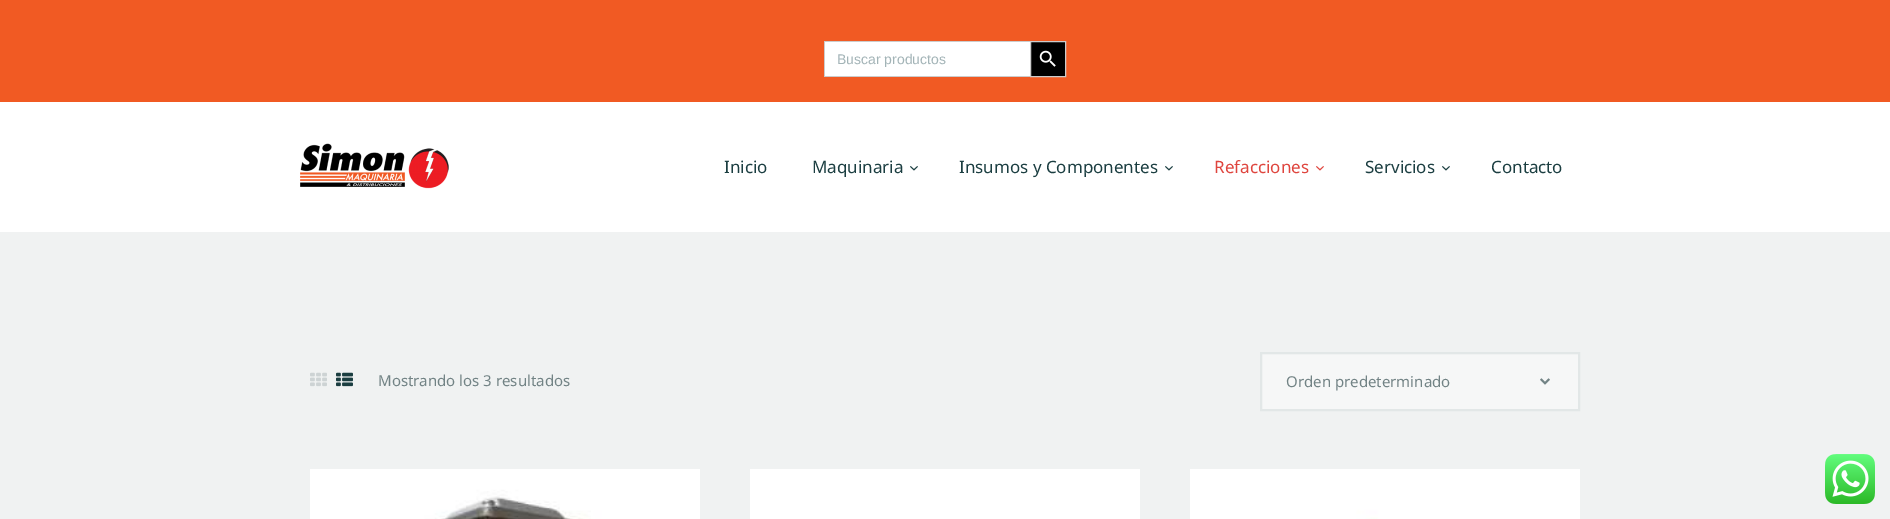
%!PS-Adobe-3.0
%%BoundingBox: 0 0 1890 519
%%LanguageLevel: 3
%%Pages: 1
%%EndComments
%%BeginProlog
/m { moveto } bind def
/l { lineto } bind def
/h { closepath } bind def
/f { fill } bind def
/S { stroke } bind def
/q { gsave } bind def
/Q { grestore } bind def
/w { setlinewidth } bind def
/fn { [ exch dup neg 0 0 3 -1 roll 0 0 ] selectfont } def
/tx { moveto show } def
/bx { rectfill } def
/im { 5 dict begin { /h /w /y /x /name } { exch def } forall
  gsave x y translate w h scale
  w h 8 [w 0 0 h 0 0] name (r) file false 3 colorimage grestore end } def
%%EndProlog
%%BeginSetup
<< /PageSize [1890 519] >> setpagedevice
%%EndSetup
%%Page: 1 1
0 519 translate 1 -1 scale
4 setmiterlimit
0.941 0.949 0.949 setrgbcolor
0 0 1890 519 bx
0.945 0.353 0.137 setrgbcolor
0 0 1890 102 bx
1 setgray
825 42 205 34 bx
0.8 setgray
824 41 206 1 bx
824 76 206 1 bx
824 41 1 36 bx
/LiberationSans-Regular 14 fn
0.639 0.706 0.718 setrgbcolor
(Buscar productos) 837 64 tx
0 setgray
1030.5 41.5 m 1065.5 41.5 l 1065.5 76.5 l 1030.5 76.5 l h q f Q
0.8 setgray
S
(image0.raw) 1039 50 17 17 im
1 setgray
0 102 1890 130 bx
(image1.raw) 300 143 149 46 im
/NotoSans-Regular 17 fn
0.106 0.243 0.255 setrgbcolor
(Inicio) 724 173 tx
(Maquinaria) 812 173 tx
(image2.raw) 910 166 8 5 im
(Insumos y Componentes) 959 173 tx
(image2.raw) 1165 166 8 5 im
0.875 0.271 0.243 setrgbcolor
(Refacciones) 1214 173 tx
(image3.raw) 1316 166 8 5 im
0.106 0.243 0.255 setrgbcolor
(Servicios) 1365 173 tx
(image2.raw) 1442 166 8 5 im
(Contacto) 1491 173 tx
(image4.raw) 310 372 17 15 im
(image5.raw) 336 372 17 15 im
/NotoSans-Regular 15 fn
0.447 0.514 0.522 setrgbcolor
(Mostrando los 3 resultados) 378 386 tx
0.965 0.969 0.969 setrgbcolor
1261 353 m 1579 353 l 1579 410 l 1261 410 l h q f Q
0.886 0.906 0.906 setrgbcolor
2 w
S
0.447 0.514 0.522 setrgbcolor
(Orden predeterminado) 1286 387 tx
(image6.raw) 1540 378 10 7 im
(image7.raw) 310 469 390 50 im
1 setgray
750 469 390 50 bx
(image8.raw) 1190 469 390 50 im
(image9.raw) 1825 454 50 50 im
showpage
%%EOF
